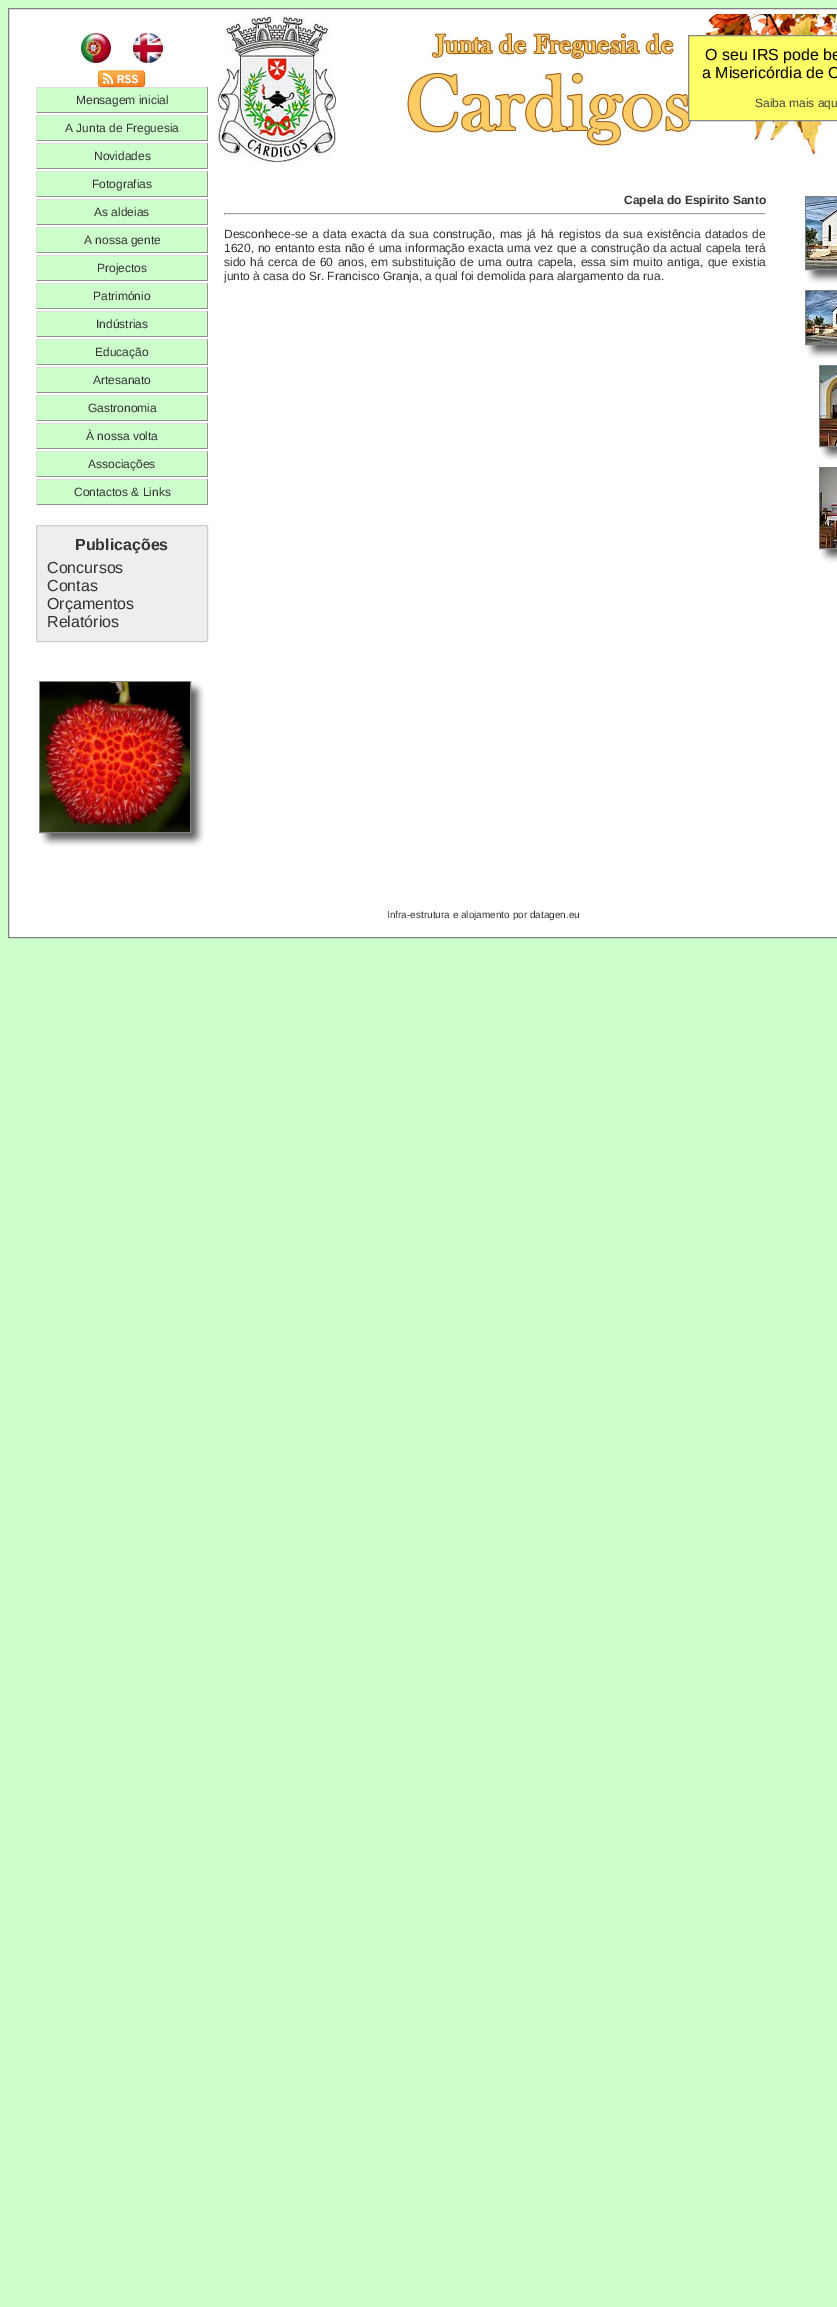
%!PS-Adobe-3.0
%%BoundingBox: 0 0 837 2307
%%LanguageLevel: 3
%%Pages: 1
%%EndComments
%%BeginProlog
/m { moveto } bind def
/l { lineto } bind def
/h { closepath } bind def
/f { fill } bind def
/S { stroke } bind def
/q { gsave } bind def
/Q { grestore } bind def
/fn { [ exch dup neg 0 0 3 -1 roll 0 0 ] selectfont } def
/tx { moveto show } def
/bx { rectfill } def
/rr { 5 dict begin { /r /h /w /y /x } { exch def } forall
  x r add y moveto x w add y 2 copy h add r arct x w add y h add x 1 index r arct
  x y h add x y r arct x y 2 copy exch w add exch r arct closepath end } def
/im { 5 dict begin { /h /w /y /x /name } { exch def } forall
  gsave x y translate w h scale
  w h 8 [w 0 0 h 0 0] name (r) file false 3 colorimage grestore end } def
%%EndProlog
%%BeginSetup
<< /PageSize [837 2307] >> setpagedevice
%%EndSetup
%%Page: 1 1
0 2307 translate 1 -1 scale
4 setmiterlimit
0.8 1 0.8 setrgbcolor
0 0 837 2307 bx
1 setgray
8.5 8.5 m 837.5 8.5 l 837.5 937.5 l 8.5 937.5 l h q f Q
0.502 setgray
S
(image0.raw) 81 33 30 30 im
(image1.raw) 133 33 30 30 im
(image2.raw) 98 70 48 17 im
0.8 1 0.8 setrgbcolor
37 88 170 24 bx
0.867 setgray
36 87 172 1 bx
0.576 setgray
207 87 1 26 bx
36 112 172 1 bx
0.867 setgray
36 87 1 26 bx
/LiberationSans-Regular 12 fn
0.2 setgray
(Mensagem inicial) 76 104 tx
0.8 1 0.8 setrgbcolor
37 116 170 24 bx
0.867 setgray
36 115 172 1 bx
0.576 setgray
207 115 1 26 bx
36 140 172 1 bx
0.867 setgray
36 115 1 26 bx
0.2 setgray
(A Junta de Freguesia) 65 132 tx
0.8 1 0.8 setrgbcolor
37 144 170 24 bx
0.867 setgray
36 143 172 1 bx
0.576 setgray
207 143 1 26 bx
36 168 172 1 bx
0.867 setgray
36 143 1 26 bx
0.2 setgray
(Novidades) 94 160 tx
0.8 1 0.8 setrgbcolor
37 172 170 24 bx
0.867 setgray
36 171 172 1 bx
0.576 setgray
207 171 1 26 bx
36 196 172 1 bx
0.867 setgray
36 171 1 26 bx
0.2 setgray
(Fotografias) 92 188 tx
0.8 1 0.8 setrgbcolor
37 200 170 24 bx
0.867 setgray
36 199 172 1 bx
0.576 setgray
207 199 1 26 bx
36 224 172 1 bx
0.867 setgray
36 199 1 26 bx
0.2 setgray
(As aldeias) 94 216 tx
0.8 1 0.8 setrgbcolor
37 228 170 24 bx
0.867 setgray
36 227 172 1 bx
0.576 setgray
207 227 1 26 bx
36 252 172 1 bx
0.867 setgray
36 227 1 26 bx
0.2 setgray
(A nossa gente) 84 244 tx
0.8 1 0.8 setrgbcolor
37 256 170 24 bx
0.867 setgray
36 255 172 1 bx
0.576 setgray
207 255 1 26 bx
36 280 172 1 bx
0.867 setgray
36 255 1 26 bx
0.2 setgray
(Projectos) 97 272 tx
0.8 1 0.8 setrgbcolor
37 284 170 24 bx
0.867 setgray
36 283 172 1 bx
0.576 setgray
207 283 1 26 bx
36 308 172 1 bx
0.867 setgray
36 283 1 26 bx
0.2 setgray
(Património) 93 300 tx
0.8 1 0.8 setrgbcolor
37 312 170 24 bx
0.867 setgray
36 311 172 1 bx
0.576 setgray
207 311 1 26 bx
36 336 172 1 bx
0.867 setgray
36 311 1 26 bx
0.2 setgray
(Indústrias) 96 328 tx
0.8 1 0.8 setrgbcolor
37 340 170 24 bx
0.867 setgray
36 339 172 1 bx
0.576 setgray
207 339 1 26 bx
36 364 172 1 bx
0.867 setgray
36 339 1 26 bx
0.2 setgray
(Educação) 95 356 tx
0.8 1 0.8 setrgbcolor
37 368 170 24 bx
0.867 setgray
36 367 172 1 bx
0.576 setgray
207 367 1 26 bx
36 392 172 1 bx
0.867 setgray
36 367 1 26 bx
0.2 setgray
(Artesanato) 93 384 tx
0.8 1 0.8 setrgbcolor
37 396 170 24 bx
0.867 setgray
36 395 172 1 bx
0.576 setgray
207 395 1 26 bx
36 420 172 1 bx
0.867 setgray
36 395 1 26 bx
0.2 setgray
(Gastronomia) 88 412 tx
0.8 1 0.8 setrgbcolor
37 424 170 24 bx
0.867 setgray
36 423 172 1 bx
0.576 setgray
207 423 1 26 bx
36 448 172 1 bx
0.867 setgray
36 423 1 26 bx
0.2 setgray
(À nossa volta) 86 440 tx
0.8 1 0.8 setrgbcolor
37 452 170 24 bx
0.867 setgray
36 451 172 1 bx
0.576 setgray
207 451 1 26 bx
36 476 172 1 bx
0.867 setgray
36 451 1 26 bx
0.2 setgray
(Associações) 88 468 tx
0.8 1 0.8 setrgbcolor
37 480 170 24 bx
0.867 setgray
36 479 172 1 bx
0.576 setgray
207 479 1 26 bx
36 504 172 1 bx
0.867 setgray
36 479 1 26 bx
0.2 setgray
(Contactos & Links) 74 496 tx
0.933 setgray
36.5 525.5 171 116 1.5 rr q f Q
0.8 setgray
S
/LiberationSans-Bold 16 fn
0.2 setgray
(Publicações) 75 550 tx
/LiberationSans-Regular 16 fn
(Concursos) 47 573 tx
(Contas) 47 591 tx
(Orçamentos) 47 609 tx
(Relatórios) 47 627 tx
(image3.raw) 191 681 14 152 im
(image4.raw) 40 833 151 14 im
(image5.raw) 191 833 14 14 im
0.502 setgray
39.5 681.5 151 151 rectstroke
(image6.raw) 40 682 150 150 im
(image7.raw) 217 14 620 150 im
1 1 0.4 setrgbcolor
688.5 35.5 m 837.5 35.5 l 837.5 120.5 l 688.5 120.5 l h q f Q
0.533 setgray
S
0 setgray
(O seu IRS pode be) 705 60 tx
(a Misericórdia de C) 702 78 tx
/LiberationSans-Regular 12 fn
0.267 setgray
(Saiba mais aqu) 755 107 tx
/LiberationSans-Bold 12 fn
0.2 setgray
(Capela do Espirito Santo) 624 204 tx
0.624 setgray
224 213 542 1 bx
0.933 setgray
765 213 1 2 bx
224 214 542 1 bx
0.624 setgray
224 213 1 2 bx
/LiberationSans-Regular 12 fn
0.2 setgray
224 238 m 1.25 0 32 (Desconhece-se a data exacta da sua construção, mas já há registos da sua existência datados de) widthshow
224 252 m 0.3 0 32 (1620, no entanto esta não é uma informação exacta uma vez que a construção da actual capela terá) widthshow
224 266 m 1.1 0 32 (sido há cerca de 60 anos, em substituição de uma outra capela, essa sim muito antiga, que existia) widthshow
(junto à casa do Sr. Francisco Granja, a qual foi demolida para alargamento da rua.) 224 280 tx
(image8.raw) 806 270 31 14 im
0.502 setgray
805.5 196.5 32 73 rectstroke
(image9.raw) 806 197 31 72 im
(image8.raw) 806 345 31 14 im
805.5 290.5 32 54 rectstroke
(image10.raw) 806 291 31 53 im
(image11.raw) 820 447 17 14 im
819.5 365.5 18 81 rectstroke
(image12.raw) 820 366 17 80 im
(image11.raw) 820 549 17 14 im
819.5 467.5 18 81 rectstroke
(image13.raw) 820 468 17 80 im
/LiberationSans-Regular 10 fn
0.2 setgray
(Infra-estrutura e alojamento por datagen.eu) 387 918 tx
showpage
%%EOF
